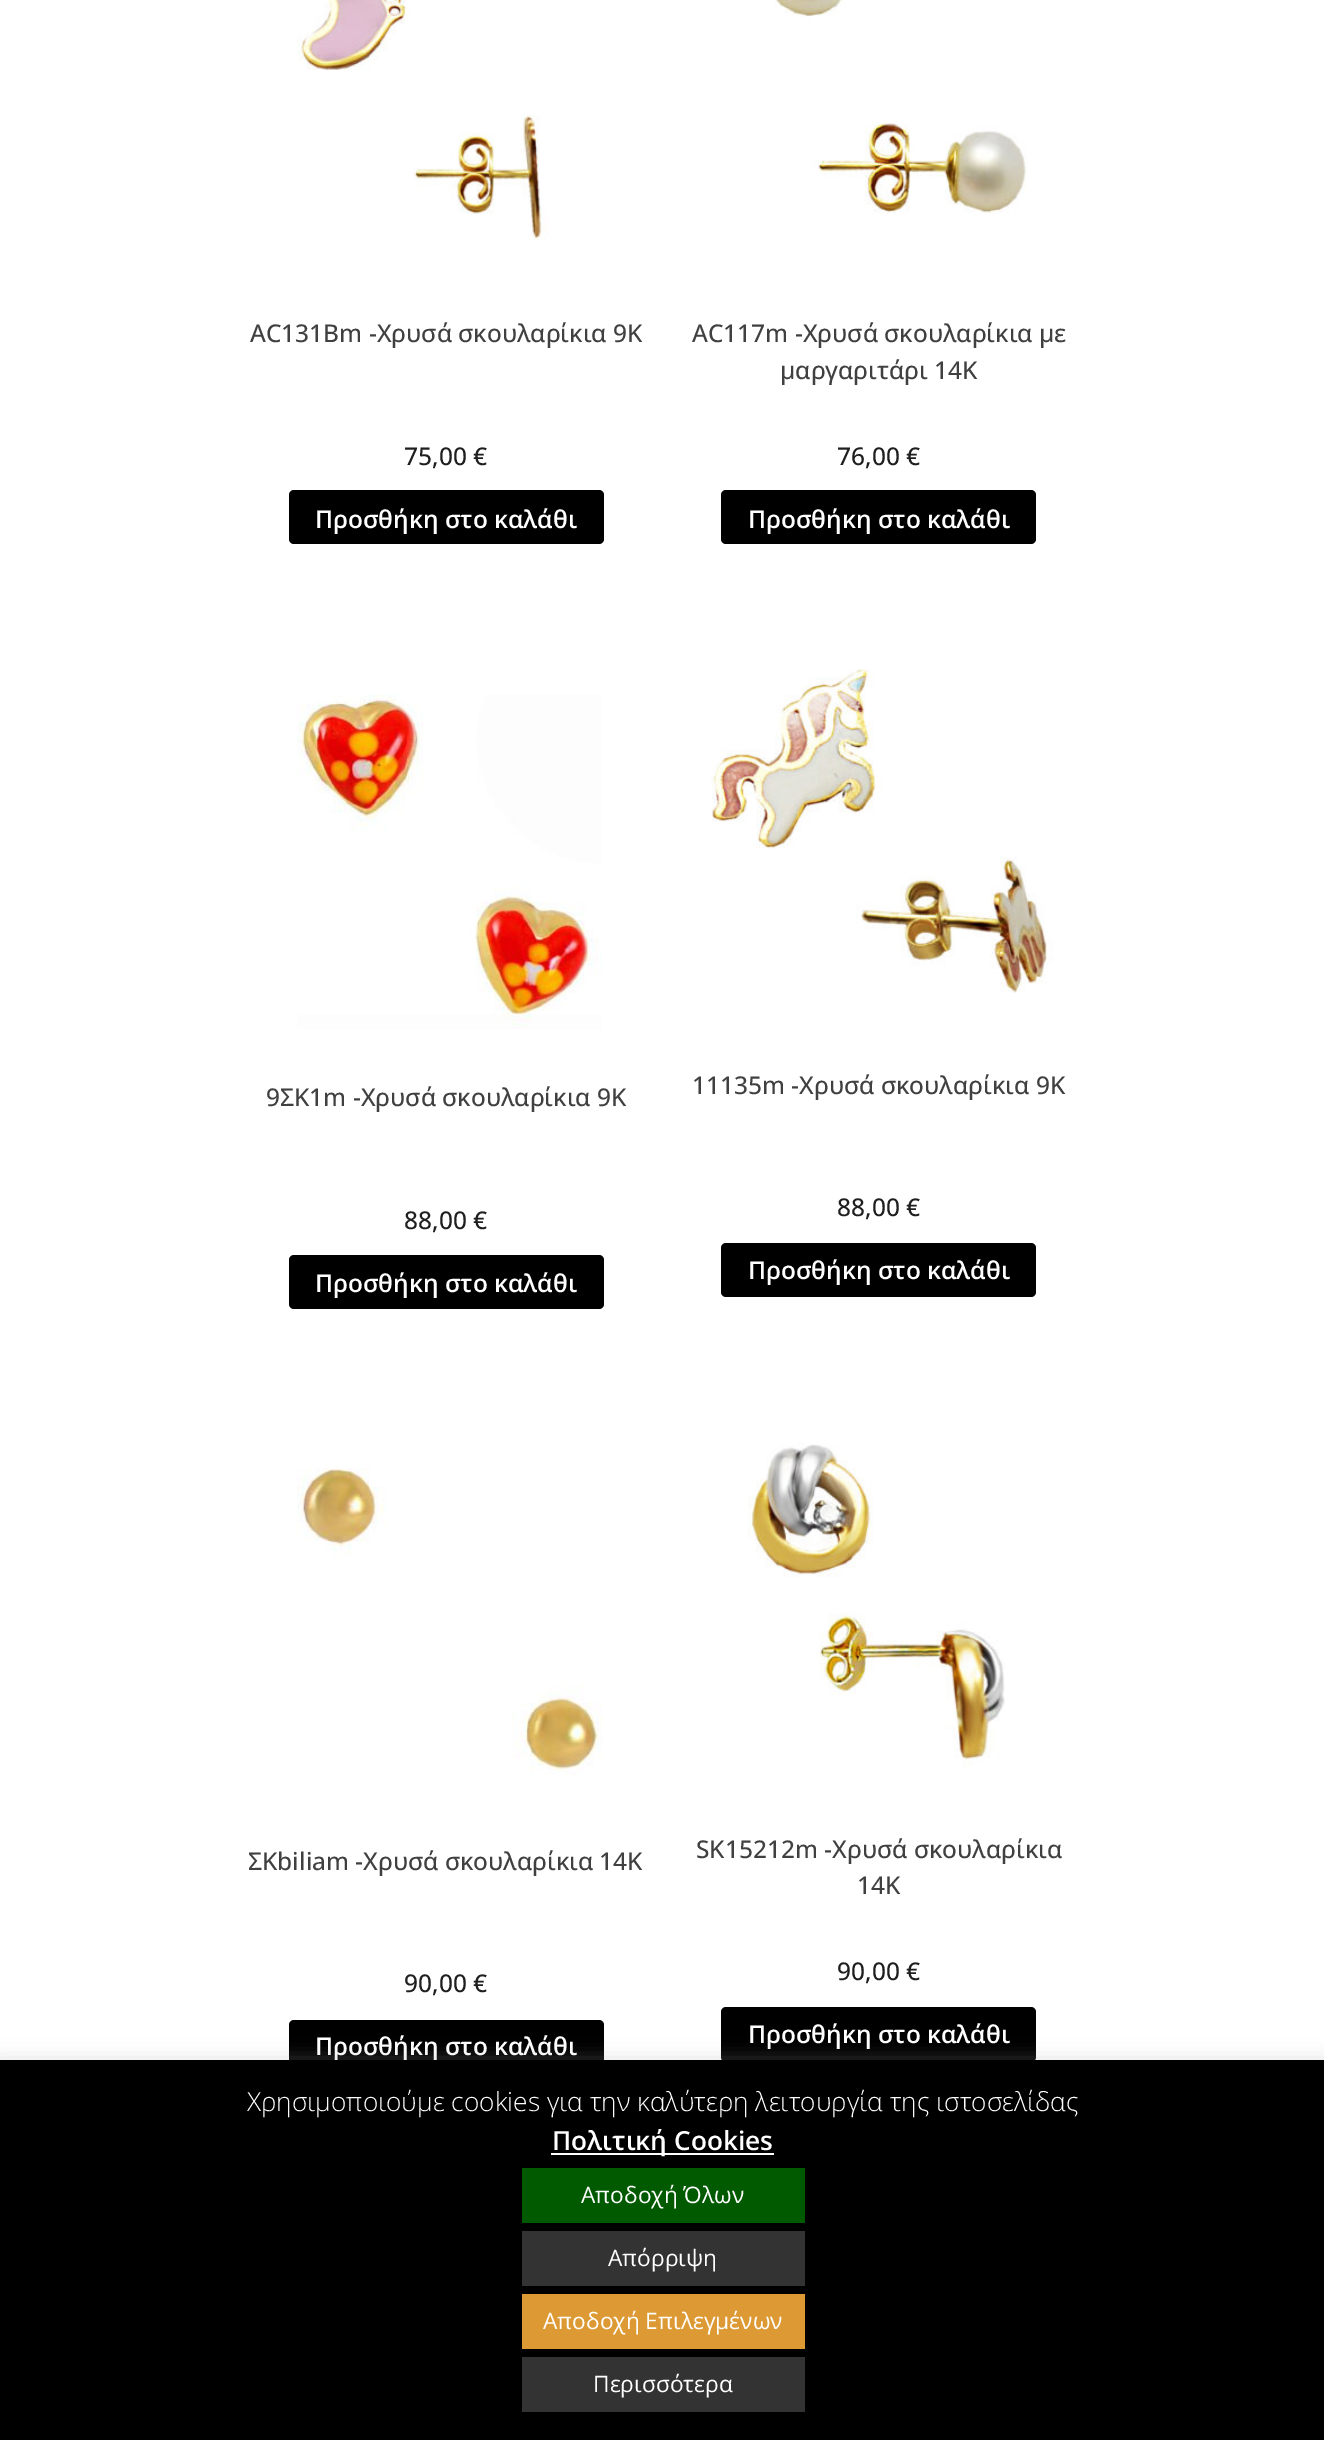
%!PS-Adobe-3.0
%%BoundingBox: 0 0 1324 2440
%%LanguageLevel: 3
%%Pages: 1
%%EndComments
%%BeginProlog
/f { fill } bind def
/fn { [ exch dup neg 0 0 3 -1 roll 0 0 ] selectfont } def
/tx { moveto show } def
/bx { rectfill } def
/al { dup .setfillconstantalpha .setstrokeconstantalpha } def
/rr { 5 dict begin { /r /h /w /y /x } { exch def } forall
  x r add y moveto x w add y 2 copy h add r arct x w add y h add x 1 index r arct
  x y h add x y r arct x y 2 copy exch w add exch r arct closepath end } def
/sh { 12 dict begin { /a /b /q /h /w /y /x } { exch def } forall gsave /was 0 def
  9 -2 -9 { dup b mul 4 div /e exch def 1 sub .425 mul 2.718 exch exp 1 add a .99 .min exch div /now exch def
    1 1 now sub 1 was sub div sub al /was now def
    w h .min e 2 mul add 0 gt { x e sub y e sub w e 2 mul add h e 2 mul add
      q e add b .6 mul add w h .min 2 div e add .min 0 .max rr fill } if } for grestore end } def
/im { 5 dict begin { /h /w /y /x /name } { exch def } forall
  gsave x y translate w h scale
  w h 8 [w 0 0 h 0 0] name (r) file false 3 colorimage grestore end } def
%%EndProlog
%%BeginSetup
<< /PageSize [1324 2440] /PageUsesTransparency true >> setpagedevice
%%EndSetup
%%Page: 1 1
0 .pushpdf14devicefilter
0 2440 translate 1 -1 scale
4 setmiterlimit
1 setgray
0 0 1324 2440 bx
(image0.raw) 297 0 251 240 im
/OpenSans-Medium 24.5 fn
0.251 setgray
(AC131Bm -Χρυσά σκουλαρίκια 9Κ) 250 342 tx
0.122 setgray
(75,00 €) 404 465 tx
0 setgray
289 490 315 54 5 rr f
/OpenSans-SemiBold 24.5 fn
1 setgray
(Προσθήκη στο καλάθι) 315 528 tx
(image1.raw) 775 0 252 214 im
/OpenSans-Medium 24.5 fn
0.251 setgray
(AC117m -Χρυσά σκουλαρίκια με) 692 342 tx
(μαργαριτάρι 14K) 780 379 tx
0.122 setgray
(76,00 €) 837 465 tx
0 setgray
721 490 315 54 5 rr f
/OpenSans-SemiBold 24.5 fn
1 setgray
(Προσθήκη στο καλάθι) 748 528 tx
(image2.raw) 297 694 305 335 im
/OpenSans-Medium 24.5 fn
0.251 setgray
(9ΣΚ1m -Χρυσά σκουλαρίκια 9Κ) 266 1106 tx
0.122 setgray
(88,00 €) 404 1229 tx
0 setgray
289 1255 315 54 5 rr f
/OpenSans-SemiBold 24.5 fn
1 setgray
(Προσθήκη στο καλάθι) 315 1292 tx
(image3.raw) 711 669 343 324 im
/OpenSans-Medium 24.5 fn
0.251 setgray
(11135m -Χρυσά σκουλαρίκια 9Κ) 692 1094 tx
0.122 setgray
(88,00 €) 837 1216 tx
0 setgray
721 1243 315 54 5 rr f
/OpenSans-SemiBold 24.5 fn
1 setgray
(Προσθήκη στο καλάθι) 748 1279 tx
(image4.raw) 297 1468 306 307 im
/OpenSans-Medium 24.5 fn
0.251 setgray
(ΣΚbiliam -Χρυσά σκουλαρίκια 14Κ) 248 1870 tx
0.122 setgray
(90,00 €) 404 1992 tx
0 setgray
289 2020 315 54 5 rr f
/OpenSans-SemiBold 24.5 fn
1 setgray
(Προσθήκη στο καλάθι) 315 2055 tx
(image5.raw) 747 1443 258 323 im
/OpenSans-Medium 24.5 fn
0.251 setgray
(SK15212m -Χρυσά σκουλαρίκια) 696 1858 tx
(14Κ) 857 1894 tx
0.122 setgray
(90,00 €) 837 1980 tx
0 setgray
721 2007 315 55 5 rr f
/OpenSans-SemiBold 24.5 fn
1 setgray
(Προσθήκη στο καλάθι) 748 2043 tx
0.675 0.671 0.671 setrgbcolor
0 2058 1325 382 0 9 0.3 sh
0 setgray
0 2060 1324 380 bx
/OpenSans-Light 26.25 fn
1 setgray
(Χρησιμοποιούμε cookies για την καλύτερη λειτουργία της ιστοσελίδας) 247 2111 tx
551 2153 223 2 bx
/OpenSans-SemiBold 26.25 fn
(Πολιτική Cookies) 552 2150 tx
0.004 0.349 0 setrgbcolor
522 2168 283 55 bx
/OpenSans-Regular 22.75 fn
1 setgray
(Αποδοχή Όλων) 581 2203 tx
0.2 setgray
522 2231 283 55 bx
1 setgray
(Απόρριψη) 608 2266 tx
0.867 0.6 0.2 setrgbcolor
522 2294 283 55 bx
1 setgray
(Αποδοχή Επιλεγμένων) 543 2329 tx
0.2 setgray
522 2357 283 55 bx
1 setgray
(Περισσότερα) 593 2392 tx
.poppdf14devicefilter showpage
%%EOF
